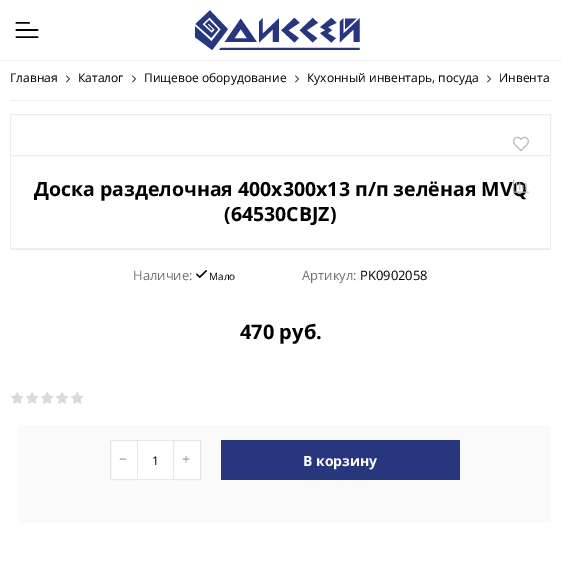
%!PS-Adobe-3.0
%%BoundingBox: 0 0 561 566
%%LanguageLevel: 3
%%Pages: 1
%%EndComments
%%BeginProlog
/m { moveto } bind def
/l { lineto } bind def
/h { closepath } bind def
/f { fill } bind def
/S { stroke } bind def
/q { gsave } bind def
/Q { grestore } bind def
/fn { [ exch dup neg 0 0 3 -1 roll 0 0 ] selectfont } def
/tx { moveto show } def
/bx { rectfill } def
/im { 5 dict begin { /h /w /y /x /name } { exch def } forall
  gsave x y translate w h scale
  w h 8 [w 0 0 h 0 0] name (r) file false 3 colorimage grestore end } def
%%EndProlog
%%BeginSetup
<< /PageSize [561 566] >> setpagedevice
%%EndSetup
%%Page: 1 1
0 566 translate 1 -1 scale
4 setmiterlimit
1 setgray
0 0 561 566 bx
0.933 setgray
0 60 561 1 bx
(image0.raw) 15 22 24 16 im
(image1.raw) 195 10 165 40 im
10 100 541 1 bx
/OpenSans-Regular 12 fn
0 setgray
(Главная) 10 82 tx
(image2.raw) 66 75 4 8 im
(Каталог) 78 82 tx
(image2.raw) 132 75 4 8 im
(Пищевое оборудование) 144 82 tx
(image2.raw) 295 75 4 8 im
(Кухонный инвентарь, посуда) 307 82 tx
(image2.raw) 487 75 4 8 im
(Инвента) 499 82 tx
0.929 setgray
10.5 114.5 540 41 rectstroke
(image3.raw) 513 136 16 16 im
/OpenSans-Bold 19.5 fn
0 setgray
(Доска разделочная 400х300х13 п/п зелёная MVQ) 34 196 tx
(image4.raw) 513 179 16 14 im
0.929 setgray
550 156 1 94 bx
10 249 541 1 bx
10 156 1 94 bx
11 248 539 1 bx
0 setgray
(\(64530CBJZ\)) 224 221 tx
/OpenSans-Regular 13 fn
0.443 setgray
(Наличие:) 133 280 tx
(image5.raw) 196 270 11 8 im
/OpenSans-Regular 10 fn
0 setgray
(Мало) 209 280 tx
/OpenSans-Regular 13 fn
0.443 setgray
(Артикул:) 302 280 tx
0 setgray
(PK0902058) 360 280 tx
/OpenSans-Bold 20 fn
(470 руб.) 240 339 tx
0.855 setgray
11 392 73 12 bx
(image6.raw) 10 391 76 14 im
0.98 setgray
18 425 533 98 bx
1 setgray
110.5 440.5 m 137.5 440.5 l 137.5 479.5 l 110.5 479.5 l h q f Q
0.902 setgray
S
/OpenSans-SemiBold 14 fn
0.631 setgray
(−) 119 464 tx
1 setgray
138 441 35 38 bx
0.902 setgray
138 440 35 1 bx
138 479 35 1 bx
/OpenSans-Regular 12 fn
0 setgray
(1) 152 465 tx
1 setgray
173.5 440.5 m 200.5 440.5 l 200.5 479.5 l 173.5 479.5 l h q f Q
0.902 setgray
S
/OpenSans-SemiBold 14 fn
0.631 setgray
(+) 182 464 tx
0.157 0.212 0.49 setrgbcolor
221 440 239 40 bx
/OpenSans-Bold 14 fn
1 setgray
(В корзину) 303 466 tx
showpage
%%EOF
